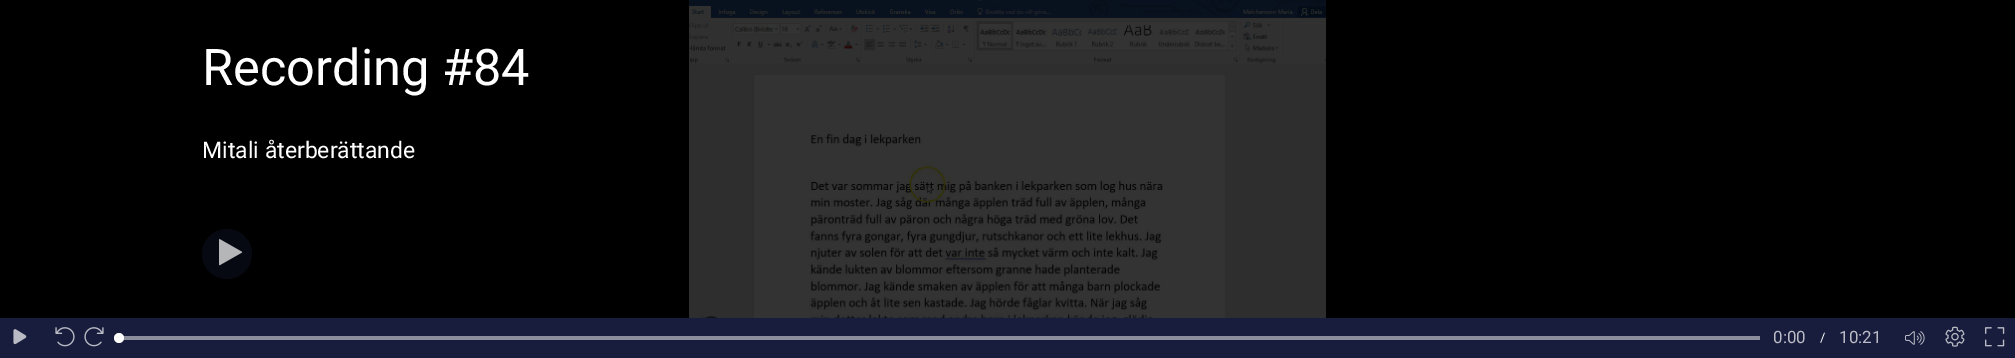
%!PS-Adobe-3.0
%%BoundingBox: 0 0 2015 358
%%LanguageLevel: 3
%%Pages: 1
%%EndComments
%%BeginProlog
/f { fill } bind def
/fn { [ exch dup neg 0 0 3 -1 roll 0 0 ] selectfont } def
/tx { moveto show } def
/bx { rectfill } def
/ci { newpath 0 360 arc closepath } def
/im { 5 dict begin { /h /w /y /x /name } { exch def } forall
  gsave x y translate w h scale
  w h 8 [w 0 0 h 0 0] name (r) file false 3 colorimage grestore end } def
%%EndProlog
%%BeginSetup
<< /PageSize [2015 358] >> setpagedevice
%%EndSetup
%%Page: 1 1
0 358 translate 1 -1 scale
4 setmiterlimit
0 setgray
0 0 2015 358 bx
/Roboto-Regular 50.5 fn
1 setgray
(Recording #84) 202 85 tx
/Roboto-Regular 23 fn
(Mitali återberättande) 202 158 tx
0.027 0.035 0.071 setrgbcolor
227 254 25 ci f
(image0.raw) 219 239 24 27 im
(image1.raw) 689 0 637 318 im
0.094 0.114 0.239 setrgbcolor
0 318 1806 40 bx
(image2.raw) 13 329 14 16 im
1806 318 209 40 bx
(image3.raw) 1945 326 20 21 im
(image4.raw) 55 327 20 20 im
(image5.raw) 84 327 20 20 im
0.549 0.557 0.62 setrgbcolor
119 336 1641 4 bx
1 setgray
119 338 5 ci f
/Roboto-Regular 17 fn
0.729 0.733 0.773 setrgbcolor
(0:00) 1773 343 tx
/Roboto-Regular 13 fn
1 setgray
(/) 1820 342 tx
/Roboto-Regular 17 fn
0.729 0.733 0.773 setrgbcolor
(10:21) 1839 343 tx
(image6.raw) 1905 331 20 14 im
(image7.raw) 1985 327 20 20 im
showpage
%%EOF
